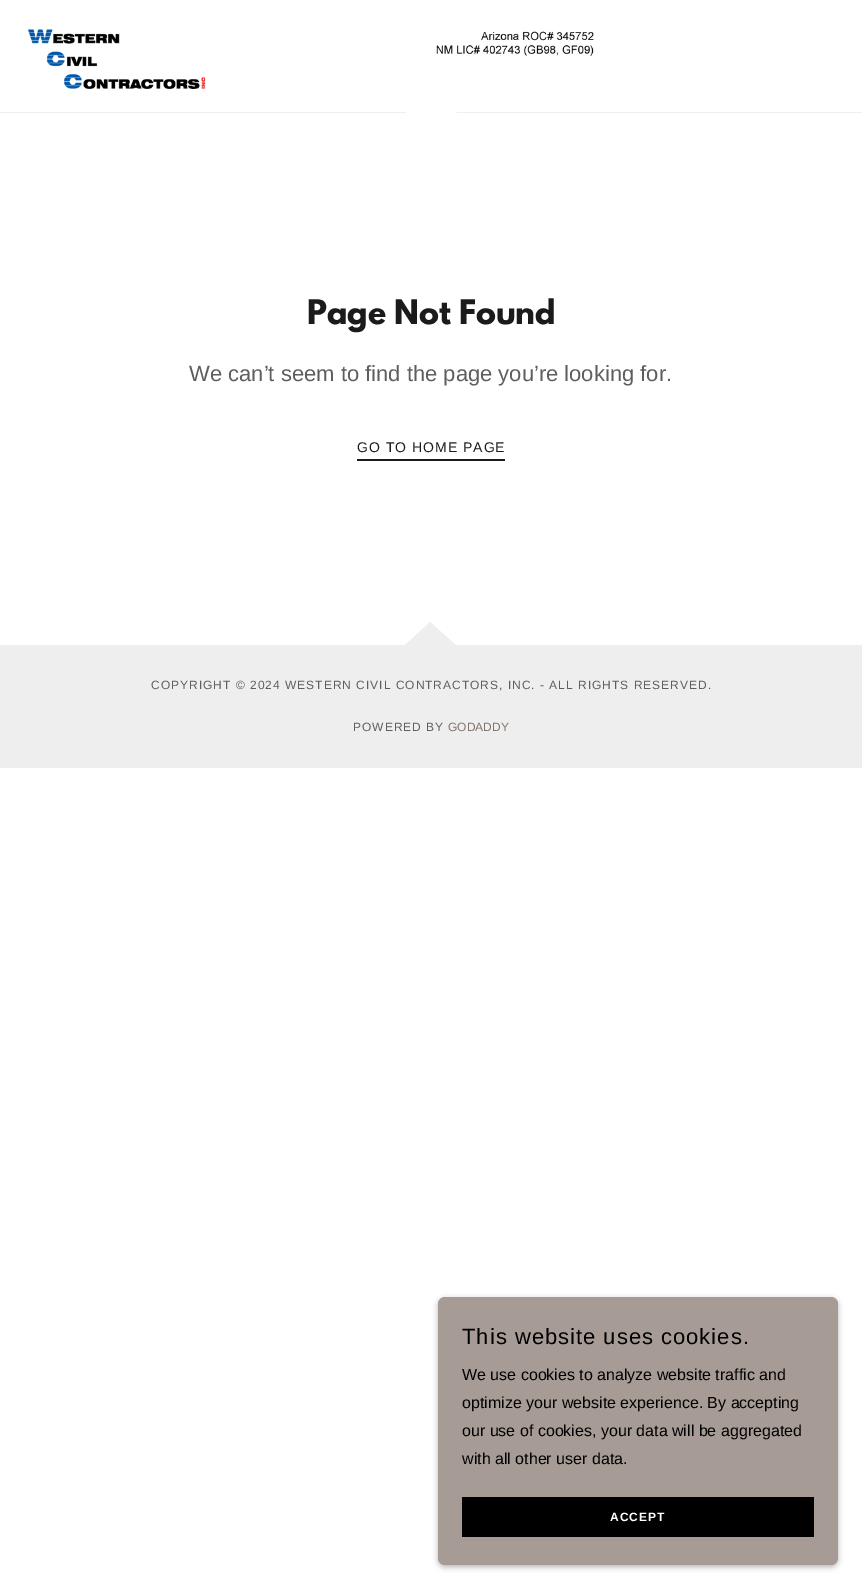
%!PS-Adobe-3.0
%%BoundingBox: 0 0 862 1589
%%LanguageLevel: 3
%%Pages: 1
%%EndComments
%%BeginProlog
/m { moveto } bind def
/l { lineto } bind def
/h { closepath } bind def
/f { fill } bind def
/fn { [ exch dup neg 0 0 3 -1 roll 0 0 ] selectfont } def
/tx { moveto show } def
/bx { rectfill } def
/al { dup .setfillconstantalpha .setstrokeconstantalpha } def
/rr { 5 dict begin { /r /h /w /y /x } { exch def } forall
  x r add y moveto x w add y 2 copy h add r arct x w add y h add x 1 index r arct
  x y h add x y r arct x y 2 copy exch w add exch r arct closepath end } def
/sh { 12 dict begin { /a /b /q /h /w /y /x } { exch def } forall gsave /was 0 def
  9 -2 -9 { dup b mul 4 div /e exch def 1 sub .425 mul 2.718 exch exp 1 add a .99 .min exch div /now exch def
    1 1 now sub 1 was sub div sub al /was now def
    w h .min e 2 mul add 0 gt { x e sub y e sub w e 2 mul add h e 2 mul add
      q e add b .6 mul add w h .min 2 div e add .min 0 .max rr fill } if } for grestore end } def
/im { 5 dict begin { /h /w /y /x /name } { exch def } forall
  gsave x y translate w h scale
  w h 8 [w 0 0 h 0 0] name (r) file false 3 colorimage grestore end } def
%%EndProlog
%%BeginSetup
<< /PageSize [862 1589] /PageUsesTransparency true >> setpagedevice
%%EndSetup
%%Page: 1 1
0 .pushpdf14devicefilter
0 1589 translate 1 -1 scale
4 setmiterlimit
1 setgray
0 0 862 1589 bx
0.937 setgray
0 112 862 1 bx
(image0.raw) 28 29 566 60 im
1 setgray
432 135 m 458 111 l 405 111 l h eofill
/LeagueSpartan-Bold 30 fn
0.106 setgray
(Page Not Found) 307 324 tx
/LiberationSans-Regular 22 fn
0.369 setgray
(We can’t seem to find the page you’re looking for.) 189 381 tx
0.106 setgray
357 459 148 2 bx
/LiberationSans-Regular 14 fn
357 452 m 1 0 (GO TO HOME PAGE) ashow
0.933 setgray
0 645 862 123 bx
430 622 m 404 646 l 457 646 l h eofill
/LiberationSans-Regular 12 fn
0.369 setgray
151 689 m 1 0 (COPYRIGHT © 2024 WESTERN CIVIL CONTRACTORS, INC. - ALL RIGHTS RESERVED.) ashow
353 731 m 1 0 (POWERED BY) ashow
0.51 0.451 0.424 setrgbcolor
(GODADDY) 448 731 tx
0 setgray
438 1299 400 268 7 3 0.3 sh
0.655 0.608 0.584 setrgbcolor
438 1297 400 268 7 rr f
/LiberationSans-Regular 22 fn
0 setgray
462 1344 m 1 0 (This website uses cookies.) ashow
/LiberationSans-Regular 16 fn
(We use cookies to analyze website traffic and) 462 1380 tx
(optimize your website experience. By accepting) 462 1408 tx
(our use of cookies, your data will be aggregated) 462 1436 tx
(with all other user data.) 462 1464 tx
462 1497 352 40 bx
/LiberationSans-Bold 12 fn
1 setgray
610 1521 m 1 0 (ACCEPT) ashow
.poppdf14devicefilter showpage
%%EOF
